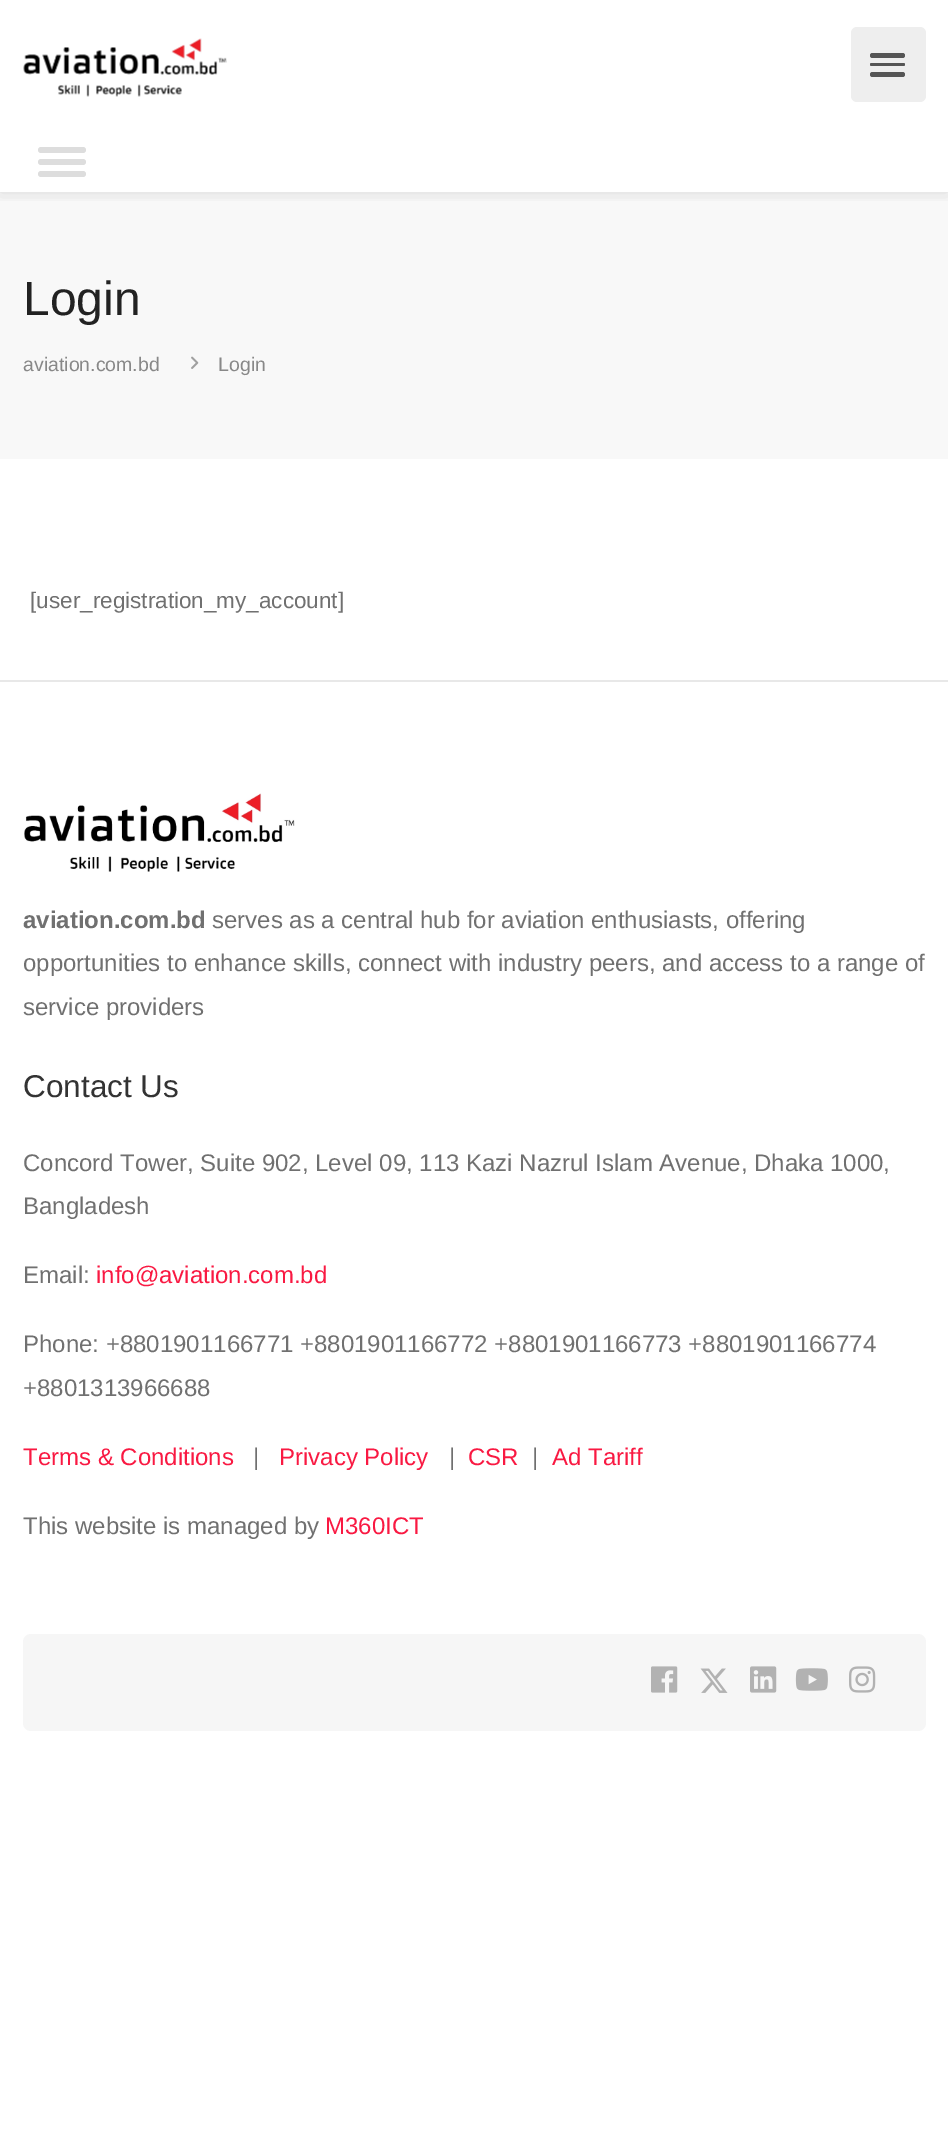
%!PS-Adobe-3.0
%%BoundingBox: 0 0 948 2145
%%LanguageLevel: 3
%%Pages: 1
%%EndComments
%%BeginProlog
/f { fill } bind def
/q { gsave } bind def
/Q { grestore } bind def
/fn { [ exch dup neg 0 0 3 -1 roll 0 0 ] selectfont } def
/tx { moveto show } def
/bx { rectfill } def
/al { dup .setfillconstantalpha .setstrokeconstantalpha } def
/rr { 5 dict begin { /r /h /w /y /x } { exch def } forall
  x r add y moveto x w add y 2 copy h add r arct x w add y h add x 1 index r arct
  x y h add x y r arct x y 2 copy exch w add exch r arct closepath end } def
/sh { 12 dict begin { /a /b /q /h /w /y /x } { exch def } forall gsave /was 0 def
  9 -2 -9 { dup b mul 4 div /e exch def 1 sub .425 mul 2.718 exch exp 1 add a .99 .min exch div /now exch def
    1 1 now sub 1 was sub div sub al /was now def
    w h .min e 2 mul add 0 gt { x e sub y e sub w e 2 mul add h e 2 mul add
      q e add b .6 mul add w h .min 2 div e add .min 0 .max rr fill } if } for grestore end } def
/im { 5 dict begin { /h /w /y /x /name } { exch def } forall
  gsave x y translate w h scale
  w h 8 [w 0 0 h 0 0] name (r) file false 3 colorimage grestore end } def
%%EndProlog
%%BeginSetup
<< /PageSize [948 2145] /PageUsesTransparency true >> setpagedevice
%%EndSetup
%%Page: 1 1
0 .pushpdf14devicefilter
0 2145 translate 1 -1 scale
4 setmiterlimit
1 setgray
0 0 948 2145 bx
0.973 setgray
0 192 948 267 bx
q
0 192 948 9 rectclip
0 setgray
0 0 948 192 0 9 0.12 sh
Q
(image0.raw) 23 38 204 59 im
0.933 setgray
851 27 75 75 6 rr f
0.333 setgray
870 72 35 5 2.5 rr f
870 53 35 5 2.5 rr f
870 63 35 3 1.5 rr f
0.867 setgray
38 147 48 6 3 rr f
38 159 48 6 3 rr f
38 171 48 6 3 rr f
/LiberationSans-Regular 48 fn
0.133 setgray
(Login) 23 315 tx
/LiberationSans-Regular 19.5 fn
0.533 setgray
(aviation.com.bd) 23 371 tx
(image1.raw) 191 356 8 13 im
(Login) 218 371 tx
/LiberationSans-Regular 22.5 fn
0.439 setgray
([user_registration_my_account]) 30 608 tx
0.91 setgray
0 680 948 2 bx
(image2.raw) 24 793 271 79 im
/LiberationSans-Bold 24 fn
0.439 setgray
(aviation.com.bd) 23 928 tx
/LiberationSans-Regular 24 fn
(serves as a central hub for aviation enthusiasts, offering) 212 928 tx
(opportunities to enhance skills, connect with industry peers, and access to a range of) 23 971 tx
(service providers) 23 1015 tx
/LiberationSans-Regular 31.5 fn
0.2 setgray
(Contact Us) 23 1097 tx
/LiberationSans-Regular 24 fn
0.439 setgray
(Concord Tower, Suite 902, Level 09, 113 Kazi Nazrul Islam Avenue, Dhaka 1000,) 23 1171 tx
(Bangladesh) 23 1214 tx
(Email:) 23 1283 tx
0.976 0.098 0.259 setrgbcolor
(info@aviation.com.bd) 96 1283 tx
0.439 setgray
(Phone: +8801901166771 +8801901166772 +8801901166773 +8801901166774) 23 1352 tx
(+8801313966688) 23 1396 tx
0.976 0.098 0.259 setrgbcolor
(Terms & Conditions) 23 1465 tx
0.439 setgray
(|) 253 1465 tx
0.976 0.098 0.259 setrgbcolor
(Privacy Policy) 279 1465 tx
0.439 setgray
(|) 449 1465 tx
0.976 0.098 0.259 setrgbcolor
(CSR) 468 1465 tx
0.439 setgray
(|) 532 1465 tx
0.976 0.098 0.259 setrgbcolor
(Ad Tariff) 552 1465 tx
0.439 setgray
(This website is managed by) 23 1534 tx
0.976 0.098 0.259 setrgbcolor
(M360ICT) 325 1534 tx
0.965 setgray
23 1634 903 97 8 rr f
(image3.raw) 651 1666 27 27 im
(image4.raw) 700 1668 28 25 im
(image5.raw) 750 1666 27 27 im
(image6.raw) 795 1668 33 23 im
(image7.raw) 849 1666 27 27 im
.poppdf14devicefilter showpage
%%EOF
